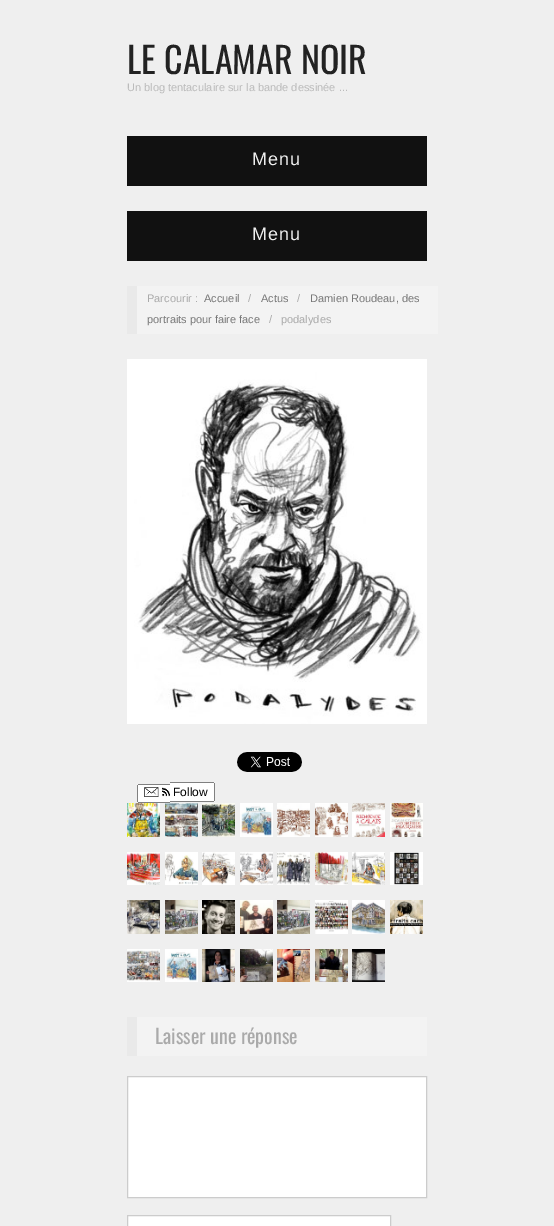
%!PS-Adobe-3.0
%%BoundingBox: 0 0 554 1226
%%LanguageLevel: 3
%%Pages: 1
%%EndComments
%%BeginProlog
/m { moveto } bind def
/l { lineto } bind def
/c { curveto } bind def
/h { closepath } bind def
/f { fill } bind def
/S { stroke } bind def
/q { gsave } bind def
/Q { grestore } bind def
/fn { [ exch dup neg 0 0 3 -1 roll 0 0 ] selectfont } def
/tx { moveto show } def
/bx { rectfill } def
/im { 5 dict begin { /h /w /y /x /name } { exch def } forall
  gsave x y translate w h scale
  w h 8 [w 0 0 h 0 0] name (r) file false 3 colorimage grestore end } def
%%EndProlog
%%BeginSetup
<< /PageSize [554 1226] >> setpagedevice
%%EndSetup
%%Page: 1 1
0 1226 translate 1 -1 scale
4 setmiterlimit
0.937 setgray
0 0 554 1226 bx
/Oswald-Regular 36 fn
0.133 setgray
(LE CALAMAR NOIR) 127 74 tx
/LiberationSans-Regular 11 fn
0.733 setgray
(Un blog tentaculaire sur la bande dessinée ...) 127 91 tx
0.067 setgray
127 136 300 50 bx
/LiberationSans-Regular 18 fn
0.933 setgray
252 165 m 1 0 (Menu) ashow
0.067 setgray
127 211 300 50 bx
0.933 setgray
252 240 m 1 0 (Menu) ashow
0.953 setgray
137 286 301 48 bx
0.914 setgray
127 286 10 48 bx
/LiberationSans-Regular 11 fn
0.667 setgray
(Parcourir :) 147 302 tx
0.467 setgray
(Accueil) 204 302 tx
0.667 setgray
(/) 248 302 tx
0.467 setgray
(Actus) 261 302 tx
0.667 setgray
(/) 297 302 tx
0.467 setgray
(Damien Roudeau, des) 310 302 tx
(portraits pour faire face) 147 323 tx
0.667 setgray
(/) 269 323 tx
(podalydes) 281 323 tx
(image0.raw) 127 359 300 365 im
(image1.raw) 237 752 65 20 im
1 setgray
139 784 m 170 784 l 170 803 l 139 803 l 138 803 137 802 137 801 c 137 786 l 137 785 138 784 139 784 c h f
(image2.raw) 144 787 26 10 im
170 782 m 213 782 l 214 782 215 783 215 784 c 215 800 l 215 801 214 802 213 802 c 170 802 l h f
/LiberationSans-Regular 12 fn
0 setgray
(Follow) 173 796 tx
0.502 setgray
138 784 32 1 bx
138 802 32 1 bx
137 785 1 17 bx
170 782 44 1 bx
214 783 1 18 bx
170 801 44 1 bx
(image3.raw) 127 803 33 34 im
(image4.raw) 165 803 33 34 im
(image5.raw) 202 803 33 34 im
(image6.raw) 240 803 33 34 im
(image7.raw) 277 803 33 34 im
(image8.raw) 315 803 33 34 im
(image9.raw) 352 803 33 34 im
(image10.raw) 390 803 33 34 im
(image11.raw) 127 852 33 33 im
(image12.raw) 165 852 33 33 im
(image13.raw) 202 852 33 33 im
(image14.raw) 240 852 33 33 im
(image15.raw) 277 852 33 33 im
(image16.raw) 315 852 33 33 im
(image17.raw) 352 852 33 33 im
(image18.raw) 390 852 33 33 im
(image19.raw) 127 900 33 34 im
(image20.raw) 165 900 33 34 im
(image21.raw) 202 900 33 34 im
(image22.raw) 240 900 33 34 im
(image20.raw) 277 900 33 34 im
(image23.raw) 315 900 33 34 im
(image24.raw) 352 900 33 34 im
(image25.raw) 390 900 33 34 im
(image26.raw) 127 949 33 33 im
(image27.raw) 165 949 33 33 im
(image28.raw) 202 949 33 33 im
(image29.raw) 240 949 33 33 im
(image30.raw) 277 949 33 33 im
(image31.raw) 315 949 33 33 im
(image32.raw) 352 949 33 33 im
0.953 setgray
137 1017 290 39 bx
0.914 setgray
127 1017 10 39 bx
/Oswald-Regular 20 fn
0.667 setgray
(Laisser une réponse) 155 1044 tx
1 setgray
127.5 1076.5 m 426.5 1076.5 l 426.5 1197.5 l 127.5 1197.5 l h q f Q
0.8 setgray
S
1 setgray
127.5 1215.5 m 390.5 1215.5 l 390.5 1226.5 l 127.5 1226.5 l h q f Q
0.8 setgray
S
showpage
%%EOF
